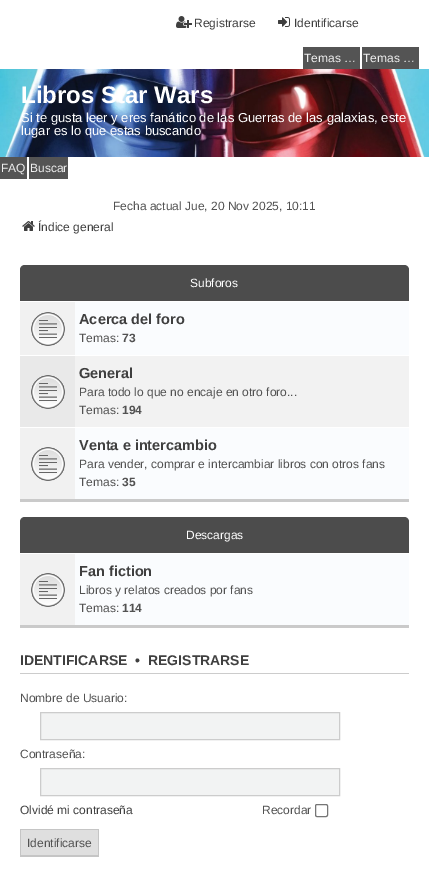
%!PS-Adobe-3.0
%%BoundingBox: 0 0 429 883
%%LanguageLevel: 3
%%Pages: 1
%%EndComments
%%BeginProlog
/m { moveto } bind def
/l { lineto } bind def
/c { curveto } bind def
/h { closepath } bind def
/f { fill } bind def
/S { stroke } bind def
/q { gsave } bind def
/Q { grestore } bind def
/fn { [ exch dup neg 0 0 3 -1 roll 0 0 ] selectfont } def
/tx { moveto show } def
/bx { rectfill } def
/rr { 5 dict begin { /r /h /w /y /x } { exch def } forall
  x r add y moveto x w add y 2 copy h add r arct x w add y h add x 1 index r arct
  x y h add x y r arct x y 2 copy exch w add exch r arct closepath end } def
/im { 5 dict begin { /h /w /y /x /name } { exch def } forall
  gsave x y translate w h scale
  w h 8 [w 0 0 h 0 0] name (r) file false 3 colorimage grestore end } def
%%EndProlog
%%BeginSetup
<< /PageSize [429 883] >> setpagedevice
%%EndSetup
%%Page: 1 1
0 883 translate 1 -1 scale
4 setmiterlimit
1 setgray
0 0 429 883 bx
(image0.raw) 176 16 16 12 im
/LiberationSans-Regular 12 fn
0.247 setgray
(Registrarse) 194 27 tx
(image1.raw) 278 17 12 10 im
(Identificarse) 294 27 tx
0.329 setgray
303 47 57 22 bx
0.933 setgray
(Temas …) 304 62 tx
0.329 setgray
362 47 57 22 bx
0.933 setgray
(Temas …) 363 62 tx
(image2.raw) 0 69 429 88 im
/LiberationSans-Bold 24 fn
1 setgray
(Libros Star Wars) 21 103 tx
/LiberationSans-Regular 13 fn
(Si te gusta leer y eres fanático de las Guerras de las galaxias, este) 21 122 tx
(lugar es lo que estas buscando) 21 135 tx
0.329 setgray
0 157 27 22 bx
/LiberationSans-Regular 12 fn
0.933 setgray
(FAQ) 1 172 tx
0.329 setgray
29 157 39 22 bx
0.933 setgray
(Buscar) 30 172 tx
0.322 setgray
(Fecha actual Jue, 20 Nov 2025, 10:11) 113 210 tx
(image3.raw) 22 221 13 10 im
0.247 setgray
(Índice general) 38 231 tx
0.298 setgray
25 265 m 404 265 l 407 265 409 267 409 270 c 409 502 l 20 502 l 20 270 l 20 267 22 265 25 265 c h f
0.792 setgray
20 499 389 3 bx
1 setgray
(Subforos) 190 287 tx
0.98 0.988 0.996 setrgbcolor
75 302 334 197 bx
1 setgray
20 301 389 1 bx
0.945 setgray
20 302 55 53 bx
(image4.raw) 31 312 34 34 im
/LiberationSans-Bold 14.5 fn
0.247 setgray
(Acerca del foro) 79 324 tx
/LiberationSans-Regular 12 fn
0.322 setgray
(Temas:) 79 342 tx
/LiberationSans-Bold 12 fn
(73) 122 342 tx
0.949 setgray
75 356 334 71 bx
1 setgray
20 355 389 1 bx
0.914 setgray
20 356 55 71 bx
(image5.raw) 31 375 34 34 im
/LiberationSans-Bold 14.5 fn
0.247 setgray
(General) 79 378 tx
/LiberationSans-Regular 12 fn
0.322 setgray
(Para todo lo que no encaje en otro foro...) 79 396 tx
(Temas:) 79 414 tx
/LiberationSans-Bold 12 fn
(194) 122 414 tx
1 setgray
20 427 389 1 bx
0.945 setgray
20 428 55 71 bx
(image6.raw) 31 447 34 34 im
/LiberationSans-Bold 14.5 fn
0.247 setgray
(Venta e intercambio) 79 450 tx
/LiberationSans-Regular 12 fn
0.322 setgray
(Para vender, comprar e intercambiar libros con otros fans) 79 468 tx
(Temas:) 79 486 tx
/LiberationSans-Bold 12 fn
(35) 122 486 tx
0.298 setgray
25 517 m 404 517 l 407 517 409 519 409 522 c 409 628 l 20 628 l 20 522 l 20 519 22 517 25 517 c h f
0.792 setgray
20 625 389 3 bx
/LiberationSans-Regular 12 fn
1 setgray
(Descargas) 186 539 tx
0.98 0.988 0.996 setrgbcolor
75 554 334 71 bx
1 setgray
20 553 389 1 bx
0.945 setgray
20 554 55 71 bx
(image6.raw) 31 573 34 34 im
/LiberationSans-Bold 14.5 fn
0.247 setgray
(Fan fiction) 79 576 tx
/LiberationSans-Regular 12 fn
0.322 setgray
(Libros y relatos creados por fans) 79 594 tx
(Temas:) 79 612 tx
/LiberationSans-Bold 12 fn
(114) 122 612 tx
0.8 setgray
20 673 389 1 bx
/LiberationSans-Bold 14 fn
0.247 setgray
(IDENTIFICARSE) 20 665 tx
(•) 135 665 tx
(REGISTRARSE) 148 665 tx
/LiberationSans-Regular 12 fn
0.322 setgray
(Nombre de Usuario:) 20 702 tx
0.949 0.953 0.953 setrgbcolor
40.5 712.5 m 339.5 712.5 l 339.5 739.5 l 40.5 739.5 l h q f Q
0.8 setgray
S
0.322 setgray
(Contraseña:) 20 758 tx
0.949 0.953 0.953 setrgbcolor
40.5 768.5 m 339.5 768.5 l 339.5 795.5 l 40.5 795.5 l h q f Q
0.8 setgray
S
0.247 setgray
(Olvidé mi contraseña) 20 814 tx
0.322 setgray
(Recordar) 262 814 tx
0.463 setgray
315.5 804.5 12 12 1.5 rr S
0.875 setgray
21 830 77 25 bx
0.773 setgray
20 829 79 1 bx
98 829 1 28 bx
20 855 79 2 bx
20 829 1 28 bx
0.322 setgray
(Identificarse) 27 847 tx
showpage
%%EOF
